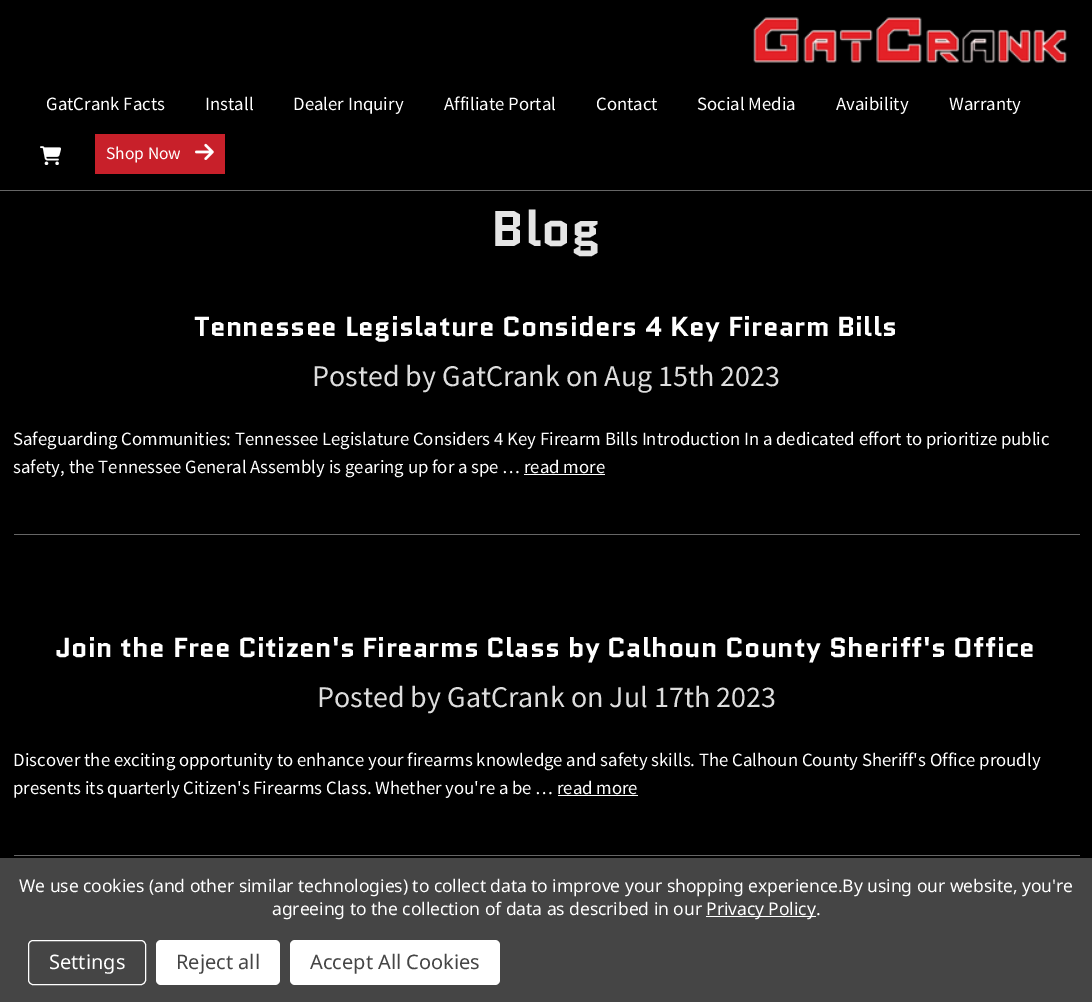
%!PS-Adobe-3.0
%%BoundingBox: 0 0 1092 1002
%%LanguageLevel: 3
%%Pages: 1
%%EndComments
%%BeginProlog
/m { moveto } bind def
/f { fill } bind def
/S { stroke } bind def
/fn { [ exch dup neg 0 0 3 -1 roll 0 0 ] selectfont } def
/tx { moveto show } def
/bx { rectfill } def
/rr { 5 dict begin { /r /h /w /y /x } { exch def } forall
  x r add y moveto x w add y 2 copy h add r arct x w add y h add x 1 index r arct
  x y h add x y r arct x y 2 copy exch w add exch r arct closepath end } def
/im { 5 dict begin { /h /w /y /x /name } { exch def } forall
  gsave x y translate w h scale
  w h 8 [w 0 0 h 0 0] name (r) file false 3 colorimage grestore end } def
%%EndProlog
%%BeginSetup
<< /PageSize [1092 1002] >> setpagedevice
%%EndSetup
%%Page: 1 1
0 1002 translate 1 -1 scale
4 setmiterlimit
0 setgray
0 0 1092 1002 bx
0.4 setgray
0 190 1092 1 bx
(image0.raw) 753 17 314 46 im
/SourceSansPro-Regular 18.75 fn
1 setgray
(GatCrank Facts) 46 110 tx
(Install) 205 110 tx
(Dealer Inquiry) 293 110 tx
(Affiliate Portal) 444 110 tx
(Contact) 596 110 tx
(Social Media) 697 110 tx
(Avaibility) 836 110 tx
(Warranty) 949 110 tx
(image1.raw) 40 146 21 19 im
0.784 0.125 0.165 setrgbcolor
95 134 130 40 bx
/SourceSansPro-Regular 17.5 fn
1 setgray
(Shop Now) 106 159 tx
(image2.raw) 195 143 19 17 im
/Quantico-Bold 50 fn
0.898 setgray
491 246 m 0.3 0 (Blog) ashow
/Quantico-Bold 27.5 fn
1 setgray
194 336 m 0.3 0 (Tennessee Legislature Considers 4 Key Firearm Bills) ashow
/SourceSansPro-Regular 30 fn
0.867 setgray
(Posted by GatCrank on Aug 15th 2023) 312 386 tx
/SourceSansPro-Regular 18.75 fn
1 setgray
(Safeguarding Communities: Tennessee Legislature Considers 4 Key Firearm Bills Introduction In a dedicated effort to prioritize public) 13 445 tx
(safety, the Tennessee General Assembly is gearing up for a spe … read more) 13 473 tx
524 474 81 1 bx
0.4 setgray
14 534 1066 1 bx
/Quantico-Bold 27.5 fn
1 setgray
56 657 m 0.3 0 (Join the Free Citizen's Firearms Class by Calhoun County Sheriff's Office) ashow
/SourceSansPro-Regular 30 fn
0.867 setgray
(Posted by GatCrank on Jul 17th 2023) 317 707 tx
/SourceSansPro-Regular 18.75 fn
1 setgray
(Discover the exciting opportunity to enhance your firearms knowledge and safety skills. The Calhoun County Sheriff's Office proudly) 13 766 tx
(presents its quarterly Citizen's Firearms Class. Whether you're a be … read more) 13 794 tx
558 795 80 1 bx
0.4 setgray
14 855 1066 1 bx
0.271 setgray
0 858 1092 144 bx
/NotoSans-Regular 17.5 fn
1 setgray
19 892 m -0.06 0 (We use cookies \(and other similar technologies\) to collect data to improve your shopping experience.By using our website, you're) ashow
272 915 m -0.06 0 (agreeing to the collection of data as described in our) ashow
706 916 110 1 bx
706 915 m -0.06 0 (Privacy Policy.) ashow
28.5 940.5 117 44 4.5 rr S
/NotoSans-Regular 20 fn
(Settings) 49 969 tx
156 940 124 45 5 rr f
0.271 setgray
(Reject all) 176 969 tx
1 setgray
290 940 210 45 5 rr f
0.271 setgray
(Accept All Cookies) 310 969 tx
showpage
%%EOF
